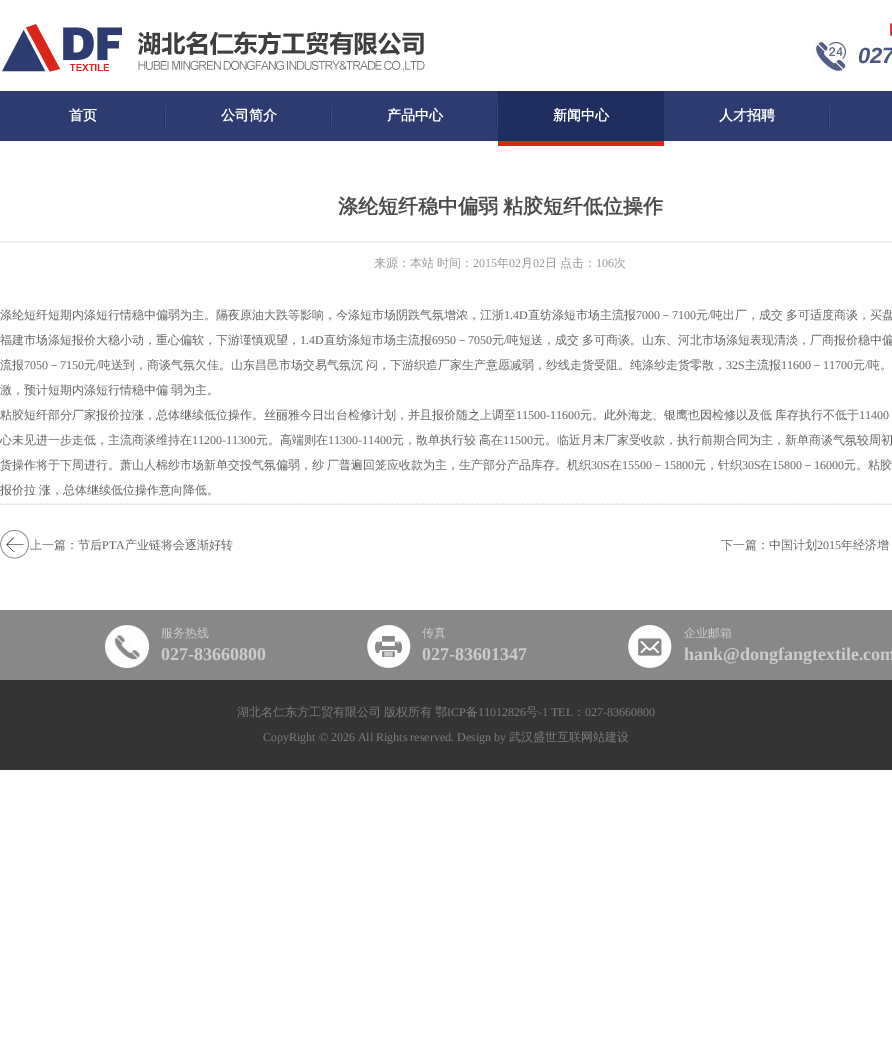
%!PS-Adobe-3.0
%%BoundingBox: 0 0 892 1063
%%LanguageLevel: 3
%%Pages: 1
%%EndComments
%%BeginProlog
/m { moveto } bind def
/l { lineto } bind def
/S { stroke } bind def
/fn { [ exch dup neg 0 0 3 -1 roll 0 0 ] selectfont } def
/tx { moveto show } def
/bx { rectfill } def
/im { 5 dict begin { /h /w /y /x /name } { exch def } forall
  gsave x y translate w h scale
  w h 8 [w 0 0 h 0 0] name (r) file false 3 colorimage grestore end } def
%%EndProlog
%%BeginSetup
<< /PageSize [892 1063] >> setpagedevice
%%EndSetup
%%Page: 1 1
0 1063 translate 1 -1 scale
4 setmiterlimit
1 setgray
0 0 892 1063 bx
(image0.raw) 2 24 423 48 im
(image1.raw) 890 23 2 13 im
(image2.raw) 813 40 35 32 im
/LiberationSans-BoldItalic 22 fn
0.286 0.337 0.51 setrgbcolor
(027) 858 63 tx
0.176 0.231 0.439 setrgbcolor
0 91 892 50 bx
(image3.raw) 164 106 2 21 im
/WenQuanYiZenHei-Bold 14 fn
1 setgray
(首页) 69 120 tx
(image3.raw) 330 106 2 21 im
(公司简介) 221 120 tx
(image3.raw) 496 106 2 21 im
(产品中心) 387 120 tx
(image4.raw) 498 91 166 55 im
(新闻中心) 553 120 tx
(image3.raw) 828 106 2 21 im
(人才招聘) 719 120 tx
0.937 setgray
0 241 892 2 bx
/WenQuanYiZenHei-Bold 20 fn
0.298 setgray
338 213 m -1 0 32 (涤纶短纤稳中偏弱 粘胶短纤低位操作) widthshow
/WenQuanYiZenHei-Medium 12 fn
0.6 setgray
(来源：本站) 374 267 tx
(时间：) 437 267 tx
/LiberationSerif-Regular 12 fn
(2015) 473 267 tx
/WenQuanYiZenHei-Medium 12 fn
(年) 497 267 tx
/LiberationSerif-Regular 12 fn
(02) 509 267 tx
/WenQuanYiZenHei-Medium 12 fn
(月) 521 267 tx
/LiberationSerif-Regular 12 fn
(02) 533 267 tx
/WenQuanYiZenHei-Medium 12 fn
(日) 545 267 tx
(点击：) 560 267 tx
/LiberationSerif-Regular 12 fn
(106) 596 267 tx
/WenQuanYiZenHei-Medium 12 fn
(次) 614 267 tx
0.933 setgray
[3 2.01] 0 setdash
0 503.5 m 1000 503.5 l S
0.4 setgray
(涤纶短纤短期内涤短行情稳中偏弱为主。隔夜原油大跌等影响，今涤短市场阴跌气氛增浓，江浙) 0 319 tx
/LiberationSerif-Regular 12 fn
(1.4D) 504 319 tx
/WenQuanYiZenHei-Medium 12 fn
(直纺涤短市场主流报) 528 319 tx
/LiberationSerif-Regular 12 fn
(7000) 636 319 tx
/WenQuanYiZenHei-Medium 12 fn
(－) 660 319 tx
/LiberationSerif-Regular 12 fn
(7100) 672 319 tx
/WenQuanYiZenHei-Medium 12 fn
(元) 696 319 tx
/LiberationSerif-Regular 12 fn
(/) 708 319 tx
/WenQuanYiZenHei-Medium 12 fn
711 319 m -1 0 32 (吨出厂，成交 多可适度商谈，买盘) widthshow
(福建市场涤短报价大稳小动，重心偏软，下游谨慎观望，) 0 344 tx
/LiberationSerif-Regular 12 fn
(1.4D) 300 344 tx
/WenQuanYiZenHei-Medium 12 fn
(直纺涤短市场主流报) 324 344 tx
/LiberationSerif-Regular 12 fn
(6950) 432 344 tx
/WenQuanYiZenHei-Medium 12 fn
(－) 456 344 tx
/LiberationSerif-Regular 12 fn
(7050) 468 344 tx
/WenQuanYiZenHei-Medium 12 fn
(元) 492 344 tx
/LiberationSerif-Regular 12 fn
(/) 504 344 tx
/WenQuanYiZenHei-Medium 12 fn
507 344 m -1 0 32 (吨短送，成交 多可商谈。山东、河北市场涤短表现清淡，厂商报价稳中偏) widthshow
(流报) 0 369 tx
/LiberationSerif-Regular 12 fn
(7050) 24 369 tx
/WenQuanYiZenHei-Medium 12 fn
(－) 48 369 tx
/LiberationSerif-Regular 12 fn
(7150) 60 369 tx
/WenQuanYiZenHei-Medium 12 fn
(元) 84 369 tx
/LiberationSerif-Regular 12 fn
(/) 96 369 tx
/WenQuanYiZenHei-Medium 12 fn
99 369 m -1 0 32 (吨送到，商谈气氛欠佳。山东昌邑市场交易气氛沉 闷，下游织造厂家生产意愿减弱，纱线走货受阻。纯涤纱走货零散，) widthshow
/LiberationSerif-Regular 12 fn
(32S) 726 369 tx
/WenQuanYiZenHei-Medium 12 fn
(主流报) 745 369 tx
/LiberationSerif-Regular 12 fn
(11600) 781 369 tx
/WenQuanYiZenHei-Medium 12 fn
(－) 811 369 tx
/LiberationSerif-Regular 12 fn
(11700) 823 369 tx
/WenQuanYiZenHei-Medium 12 fn
(元) 853 369 tx
/LiberationSerif-Regular 12 fn
(/) 865 369 tx
/WenQuanYiZenHei-Medium 12 fn
(吨。) 868 369 tx
0 394 m -1 0 32 (激，预计短期内涤短行情稳中偏 弱为主。) widthshow
(粘胶短纤部分厂家报价拉涨，总体继续低位操作。丝丽雅今日出台检修计划，并且报价随之上调至) 0 419 tx
/LiberationSerif-Regular 12 fn
(11500-11600) 516 419 tx
/WenQuanYiZenHei-Medium 12 fn
580 419 m -1 0 32 (元。此外海龙、银鹰也因检修以及低 库存执行不低于) widthshow
/LiberationSerif-Regular 12 fn
(11400) 859 419 tx
/WenQuanYiZenHei-Medium 12 fn
(心未见进一步走低，主流商谈维持在) 0 444 tx
/LiberationSerif-Regular 12 fn
(11200-11300) 192 444 tx
/WenQuanYiZenHei-Medium 12 fn
(元。高端则在) 256 444 tx
/LiberationSerif-Regular 12 fn
(11300-11400) 328 444 tx
/WenQuanYiZenHei-Medium 12 fn
392 444 m -1 0 32 (元，散单执行较 高在) widthshow
/LiberationSerif-Regular 12 fn
(11500) 503 444 tx
/WenQuanYiZenHei-Medium 12 fn
(元。临近月末厂家受收款，执行前期合同为主，新单商谈气氛较周初) 533 444 tx
0 469 m -1 0 32 (货操作将于下周进行。萧山人棉纱市场新单交投气氛偏弱，纱 厂普遍回笼应收款为主，生产部分产品库存。机织) widthshow
/LiberationSerif-Regular 12 fn
(30S) 591 469 tx
/WenQuanYiZenHei-Medium 12 fn
(在) 610 469 tx
/LiberationSerif-Regular 12 fn
(15500) 622 469 tx
/WenQuanYiZenHei-Medium 12 fn
(－) 652 469 tx
/LiberationSerif-Regular 12 fn
(15800) 664 469 tx
/WenQuanYiZenHei-Medium 12 fn
(元，针织) 694 469 tx
/LiberationSerif-Regular 12 fn
(30S) 742 469 tx
/WenQuanYiZenHei-Medium 12 fn
(在) 760 469 tx
/LiberationSerif-Regular 12 fn
(15800) 772 469 tx
/WenQuanYiZenHei-Medium 12 fn
(－) 802 469 tx
/LiberationSerif-Regular 12 fn
(16000) 814 469 tx
/WenQuanYiZenHei-Medium 12 fn
(元。粘胶) 844 469 tx
0 494 m -1 0 32 (报价拉 涨，总体继续低位操作意向降低。) widthshow
0.906 setgray
0 504 892 1 bx
(image5.raw) 0 530 29 29 im
0.4 setgray
(上一篇：节后) 30 549 tx
/LiberationSerif-Regular 12 fn
(PTA) 102 549 tx
/WenQuanYiZenHei-Medium 12 fn
(产业链将会逐渐好转) 125 549 tx
(下一篇：中国计划) 721 549 tx
/LiberationSerif-Regular 12 fn
(2015) 817 549 tx
/WenQuanYiZenHei-Medium 12 fn
(年经济增) 841 549 tx
0.537 0.533 0.533 setrgbcolor
0 610 892 70 bx
(image6.raw) 105 625 44 43 im
0.8 setgray
(服务热线) 161 637 tx
(image7.raw) 367 625 44 43 im
(传真) 422 637 tx
(image8.raw) 628 625 44 43 im
(企业邮箱) 684 637 tx
/LiberationSerif-Bold 18 fn
(027-83660800) 161 660 tx
(027-83601347) 422 660 tx
(hank@dongfangtextile.com) 684 660 tx
0.204 setgray
0 680 892 90 bx
/WenQuanYiZenHei-Medium 12 fn
0.482 setgray
237 716 m -1 0 32 (湖北名仁东方工贸有限公司 版权所有) widthshow
(鄂) 435 716 tx
/LiberationSerif-Regular 12 fn
(ICP) 447 716 tx
/WenQuanYiZenHei-Medium 12 fn
(备) 466 716 tx
/LiberationSerif-Regular 12 fn
(11012826) 478 716 tx
/WenQuanYiZenHei-Medium 12 fn
(号) 526 716 tx
/LiberationSerif-Regular 12 fn
(-1 TEL) 538 716 tx
/WenQuanYiZenHei-Medium 12 fn
(：) 573 716 tx
/LiberationSerif-Regular 12 fn
(027-83660800) 585 716 tx
(CopyRight © 2026 All Rights reserved. Design by) 263 741 tx
/WenQuanYiZenHei-Medium 12 fn
(武汉盛世互联网站建设) 509 741 tx
showpage
%%EOF
